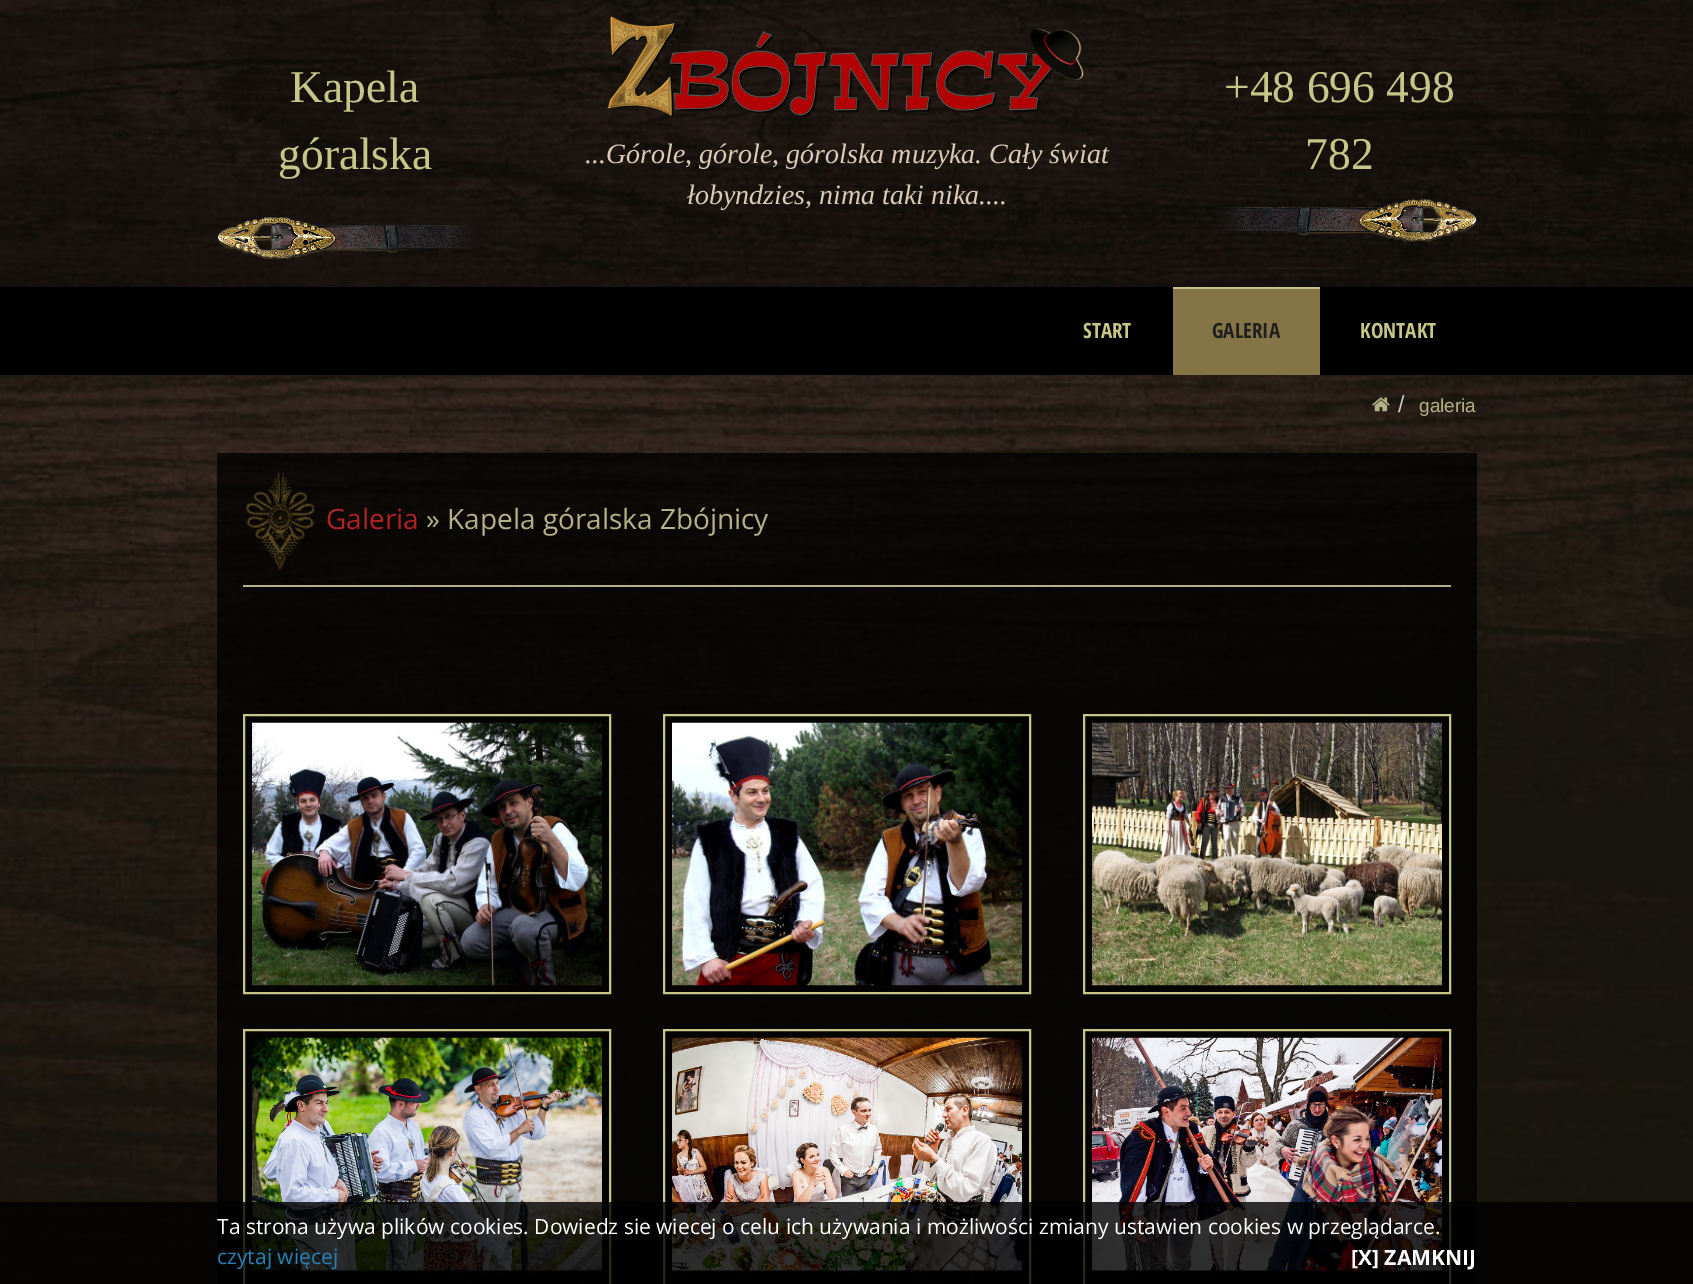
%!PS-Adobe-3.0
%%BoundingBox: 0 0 1693 1284
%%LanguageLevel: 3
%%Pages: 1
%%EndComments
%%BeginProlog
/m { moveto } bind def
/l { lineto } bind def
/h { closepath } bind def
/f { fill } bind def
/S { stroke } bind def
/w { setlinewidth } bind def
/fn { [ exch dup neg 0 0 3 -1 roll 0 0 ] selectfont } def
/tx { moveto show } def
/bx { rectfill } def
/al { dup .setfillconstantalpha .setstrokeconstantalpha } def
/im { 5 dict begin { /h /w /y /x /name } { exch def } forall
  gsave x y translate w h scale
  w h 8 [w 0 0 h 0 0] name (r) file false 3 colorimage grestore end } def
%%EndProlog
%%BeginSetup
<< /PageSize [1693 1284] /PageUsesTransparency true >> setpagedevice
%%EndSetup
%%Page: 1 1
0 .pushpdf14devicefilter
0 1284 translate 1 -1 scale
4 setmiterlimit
1 setgray
0 0 1693 1284 bx
(image0.raw) 0 0 1693 1284 im
0.4 al
0 setgray
0 0 1693 287 bx
/LiberationSerif-Regular 45.5 fn
1 al
0.776 0.776 0.533 setrgbcolor
(Kapela) 290 102 tx
(góralska) 278 169 tx
(image1.raw) 217 216 259 43 im
(+48 696 498) 1224 102 tx
(782) 1305 169 tx
(image2.raw) 1216 198 261 44 im
(image3.raw) 607 15 477 102 im
/LiberationSerif-Italic 28 fn
0.855 0.796 0.714 setrgbcolor
(...Górole, górole, górolska muzyka. Cały świat) 585 163 tx
(łobyndzies, nima taki nika....) 687 204 tx
0 setgray
0 287 1693 88 bx
/OpenSansCondensed-Bold 21 fn
0.776 0.776 0.533 setrgbcolor
(START) 1083 338 tx
1173 287 147 2 bx
0.518 0.455 0.275 setrgbcolor
1173 289 147 86 bx
0.125 setgray
(GALERIA) 1212 338 tx
0.776 0.776 0.533 setrgbcolor
(KONTAKT) 1360 338 tx
(image4.raw) 1372 397 18 15 im
/LiberationSans-Regular 23 fn
0.8 setgray
(/) 1398 412 tx
/LiberationSans-Regular 19 fn
0.698 0.698 0.525 setrgbcolor
(galeria) 1419 412 tx
0.75 al
0 setgray
217 453 1260 831 bx
1 al
(image5.raw) 245 472 71 99 im
/OpenSans-Regular 28 fn
0.698 0.133 0.133 setrgbcolor
(Galeria) 326 529 tx
0.698 0.698 0.525 setrgbcolor
(» Kapela góralska Zbójnicy) 426 529 tx
243 585 1208 2 bx
0.5 al
0 setgray
244 715 m 610 715 l 610 993 l 244 993 l h f
1 al
0.776 0.776 0.533 setrgbcolor
2 w
244 715 m 610 715 l 610 993 l 244 993 l h S
(image6.raw) 252 722 350 264 im
0.5 al
0 setgray
664 715 m 1030 715 l 1030 993 l 664 993 l h f
1 al
0.776 0.776 0.533 setrgbcolor
664 715 m 1030 715 l 1030 993 l 664 993 l h S
(image7.raw) 672 722 350 264 im
0.5 al
0 setgray
1084 715 m 1450 715 l 1450 993 l 1084 993 l h f
1 al
0.776 0.776 0.533 setrgbcolor
1084 715 m 1450 715 l 1450 993 l 1084 993 l h S
(image8.raw) 1092 722 350 264 im
0.5 al
0 setgray
244 1030 m 610 1030 l 610 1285 l 244 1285 l h f
1 al
0.776 0.776 0.533 setrgbcolor
244 1030 m 610 1030 l 610 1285 l 244 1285 l h S
(image9.raw) 252 1037 350 234 im
0.5 al
0 setgray
664 1030 m 1030 1030 l 1030 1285 l 664 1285 l h f
1 al
0.776 0.776 0.533 setrgbcolor
664 1030 m 1030 1030 l 1030 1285 l 664 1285 l h S
(image10.raw) 672 1037 350 234 im
0.5 al
0 setgray
1084 1030 m 1450 1030 l 1450 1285 l 1084 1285 l h f
1 al
0.776 0.776 0.533 setrgbcolor
1084 1030 m 1450 1030 l 1450 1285 l 1084 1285 l h S
(image11.raw) 1092 1037 350 234 im
0.8 al
0 setgray
0 1202 1693 82 bx
/OpenSans-Regular 21 fn
1 al
1 setgray
(Ta strona używa plików cookies. Dowiedz sie wiecej o celu ich używania i możliwości zmiany ustawien cookies w przeglądarce.) 217 1234 tx
0.161 0.502 0.725 setrgbcolor
(czytaj więcej) 217 1264 tx
/OpenSans-Bold 21 fn
1 setgray
([X] ZAMKNIJ) 1351 1265 tx
.poppdf14devicefilter showpage
%%EOF
